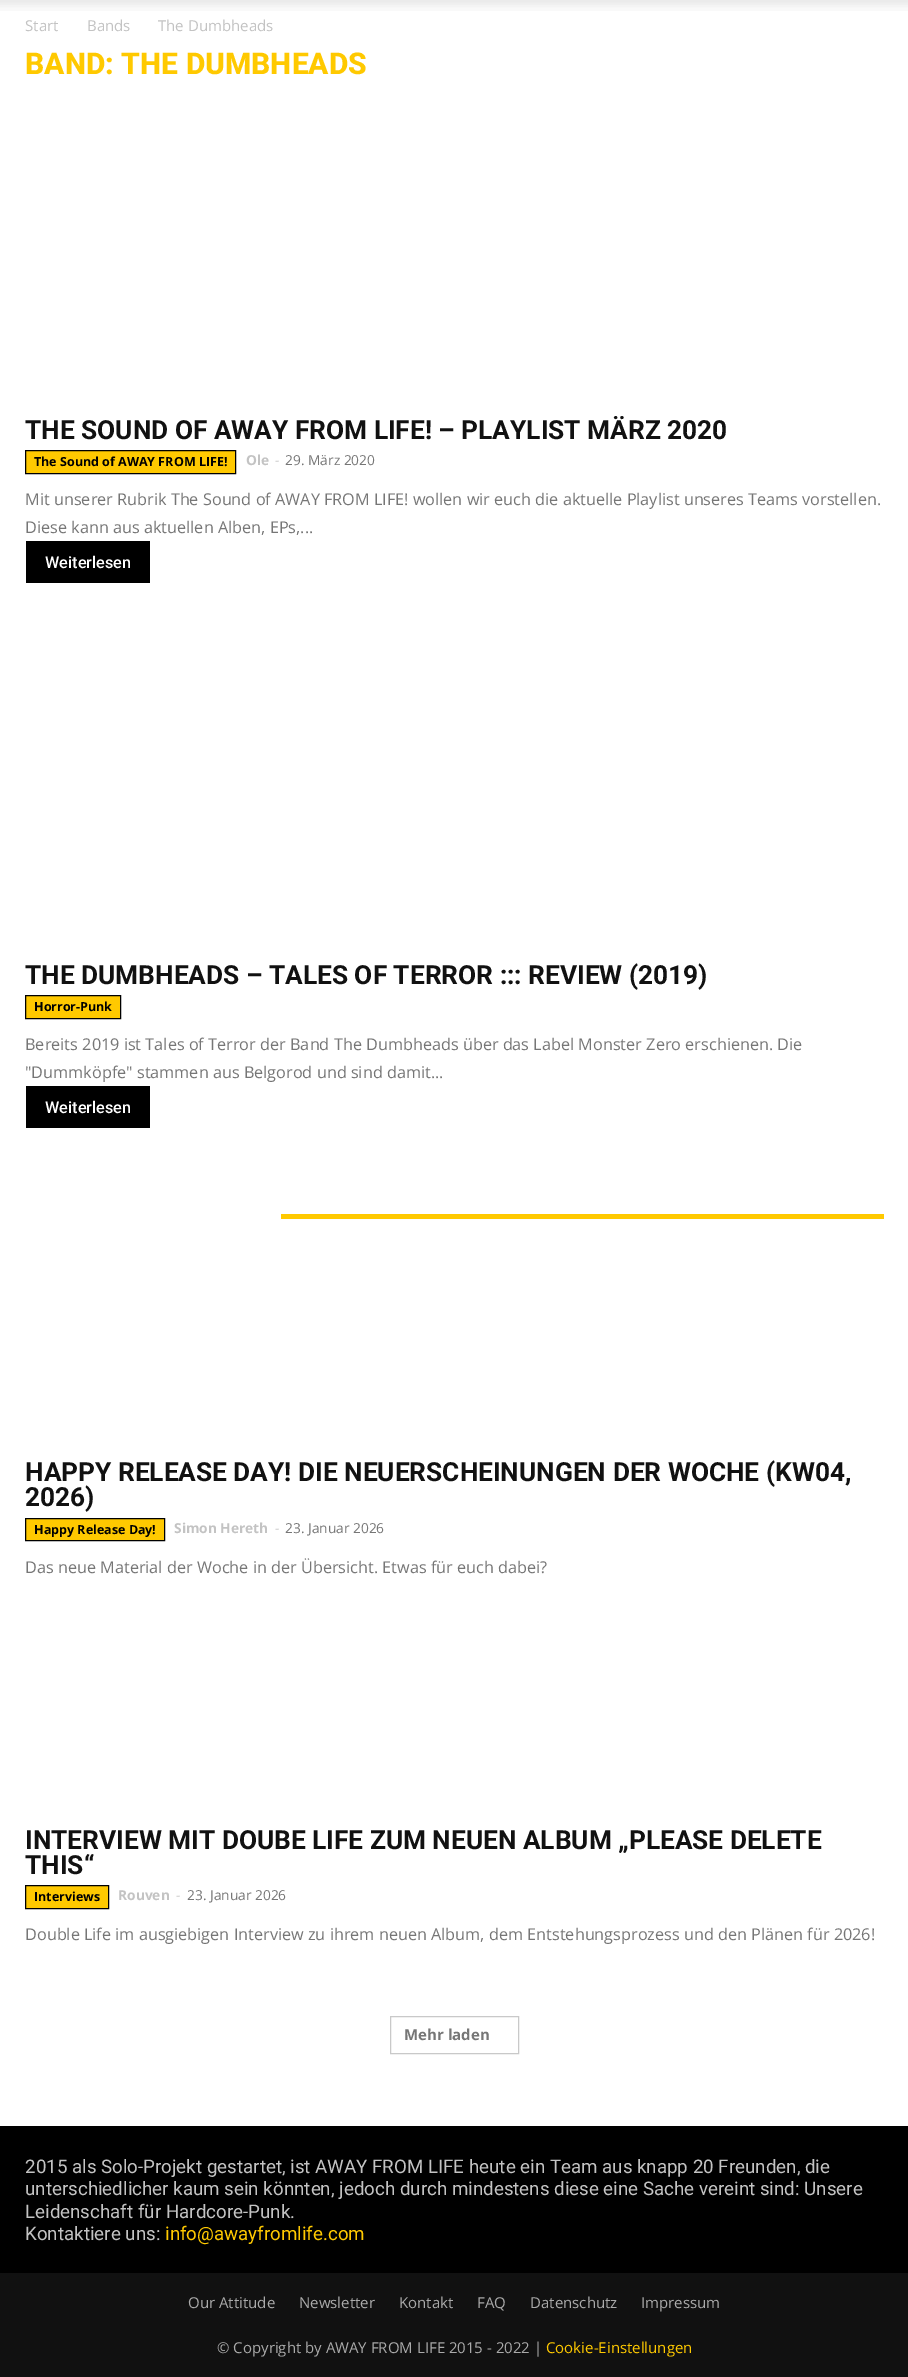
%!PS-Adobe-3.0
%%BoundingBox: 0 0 908 2377
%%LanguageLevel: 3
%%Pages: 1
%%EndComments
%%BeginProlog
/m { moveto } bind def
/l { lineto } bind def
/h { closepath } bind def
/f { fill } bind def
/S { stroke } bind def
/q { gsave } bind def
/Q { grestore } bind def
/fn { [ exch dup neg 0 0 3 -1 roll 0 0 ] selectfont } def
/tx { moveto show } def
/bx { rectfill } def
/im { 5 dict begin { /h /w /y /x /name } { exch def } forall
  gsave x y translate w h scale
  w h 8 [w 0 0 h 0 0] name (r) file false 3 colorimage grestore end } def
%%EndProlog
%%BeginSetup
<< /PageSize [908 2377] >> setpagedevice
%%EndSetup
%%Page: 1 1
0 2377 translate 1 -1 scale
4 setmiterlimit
1 setgray
0 0 908 2377 bx
(image0.raw) 0 0 908 11 im
/OpenSans-Regular 15 fn
0.765 setgray
(Start) 25 31 tx
(Bands) 87 31 tx
(The Dumbheads) 158 31 tx
/Roboto-ExtraBold 30 fn
1 0.788 0 setrgbcolor
(BAND: THE DUMBHEADS) 25 74 tx
/Roboto-Bold 26.25 fn
0.067 setgray
(THE SOUND OF AWAY FROM LIFE! – PLAYLIST MÄRZ 2020) 25 439 tx
1 0.788 0 setrgbcolor
25.5 450.5 m 235.5 450.5 l 235.5 473.5 l 25.5 473.5 l h q f Q
0 setgray
S
/OpenSans-Bold 12.5 fn
(The Sound of AWAY FROM LIFE!) 34 466 tx
/OpenSans-Bold 13.75 fn
0.765 setgray
(Ole) 246 465 tx
/OpenSans-Regular 13.75 fn
0.8 setgray
(-) 275 465 tx
0.463 setgray
(29. März 2020) 285 465 tx
/OpenSans-Regular 16.25 fn
(Mit unserer Rubrik The Sound of AWAY FROM LIFE! wollen wir euch die aktuelle Playlist unseres Teams vorstellen.) 25 505 tx
(Diese kann aus aktuellen Alben, EPs,...) 25 533 tx
0 setgray
26 541 124 42 bx
/Roboto-Medium 16.25 fn
1 setgray
(Weiterlesen) 45 568 tx
/Roboto-Bold 26.25 fn
0.067 setgray
(THE DUMBHEADS – TALES OF TERROR ::: REVIEW \(2019\)) 25 984 tx
1 0.788 0 setrgbcolor
25.5 995.5 m 120.5 995.5 l 120.5 1018.5 l 25.5 1018.5 l h q f Q
0 setgray
S
/OpenSans-Bold 12.5 fn
(Horror-Punk) 34 1011 tx
/OpenSans-Regular 16.25 fn
0.463 setgray
(Bereits 2019 ist Tales of Terror der Band The Dumbheads über das Label Monster Zero erschienen. Die) 25 1050 tx
("Dummköpfe" stammen aus Belgorod und sind damit...) 25 1078 tx
0 setgray
26 1086 124 42 bx
/Roboto-Medium 16.25 fn
1 setgray
(Weiterlesen) 45 1113 tx
1 0.788 0 setrgbcolor
281 1214 603 5 bx
/Roboto-Bold 26.25 fn
0.067 setgray
(HAPPY RELEASE DAY! DIE NEUERSCHEINUNGEN DER WOCHE \(KW04,) 25 1481 tx
(2026\)) 25 1506 tx
1 0.788 0 setrgbcolor
25.5 1518.5 m 164.5 1518.5 l 164.5 1540.5 l 25.5 1540.5 l h q f Q
0 setgray
S
/OpenSans-Bold 12.5 fn
(Happy Release Day!) 34 1534 tx
/OpenSans-Bold 13.75 fn
0.765 setgray
(Simon Hereth) 174 1533 tx
/OpenSans-Regular 13.75 fn
0.8 setgray
(-) 275 1533 tx
0.463 setgray
(23. Januar 2026) 285 1533 tx
/OpenSans-Regular 16.25 fn
(Das neue Material der Woche in der Übersicht. Etwas für euch dabei?) 25 1573 tx
/Roboto-Bold 26.25 fn
0.067 setgray
(INTERVIEW MIT DOUBE LIFE ZUM NEUEN ALBUM „PLEASE DELETE) 25 1849 tx
(THIS“) 25 1874 tx
1 0.788 0 setrgbcolor
25.5 1885.5 m 108.5 1885.5 l 108.5 1908.5 l 25.5 1908.5 l h q f Q
0 setgray
S
/OpenSans-Bold 12.5 fn
(Interviews) 34 1901 tx
/OpenSans-Bold 13.75 fn
0.765 setgray
(Rouven) 118 1900 tx
/OpenSans-Regular 13.75 fn
0.8 setgray
(-) 176 1900 tx
0.463 setgray
(23. Januar 2026) 187 1900 tx
/OpenSans-Regular 16.25 fn
(Double Life im ausgiebigen Interview zu ihrem neuen Album, dem Entstehungsprozess und den Plänen für 2026!) 25 1940 tx
0.788 setgray
390.5 2016.5 128 37 rectstroke
/OpenSans-Bold 15 fn
0.463 setgray
(Mehr laden) 404 2040 tx
0 setgray
0 2126 908 147 bx
/Roboto-Regular 18.75 fn
0.765 setgray
(2015 als Solo-Projekt gestartet, ist AWAY FROM LIFE heute ein Team aus knapp 20 Freunden, die) 25 2173 tx
(unterschiedlicher kaum sein könnten, jedoch durch mindestens diese eine Sache vereint sind: Unsere) 25 2195 tx
(Leidenschaft für Hardcore-Punk.) 25 2218 tx
(Kontaktiere uns:) 25 2240 tx
1 0.788 0 setrgbcolor
(info@awayfromlife.com) 165 2240 tx
0.067 setgray
0 2273 908 104 bx
/OpenSans-Regular 15 fn
0.667 setgray
(Our Attitude) 188 2308 tx
(Newsletter) 299 2308 tx
(Kontakt) 399 2308 tx
(FAQ) 477 2308 tx
(Datenschutz) 530 2308 tx
(Impressum) 641 2308 tx
(© Copyright by AWAY FROM LIFE 2015 - 2022 |) 217 2353 tx
1 0.788 0 setrgbcolor
(Cookie-Einstellungen) 546 2353 tx
showpage
%%EOF
